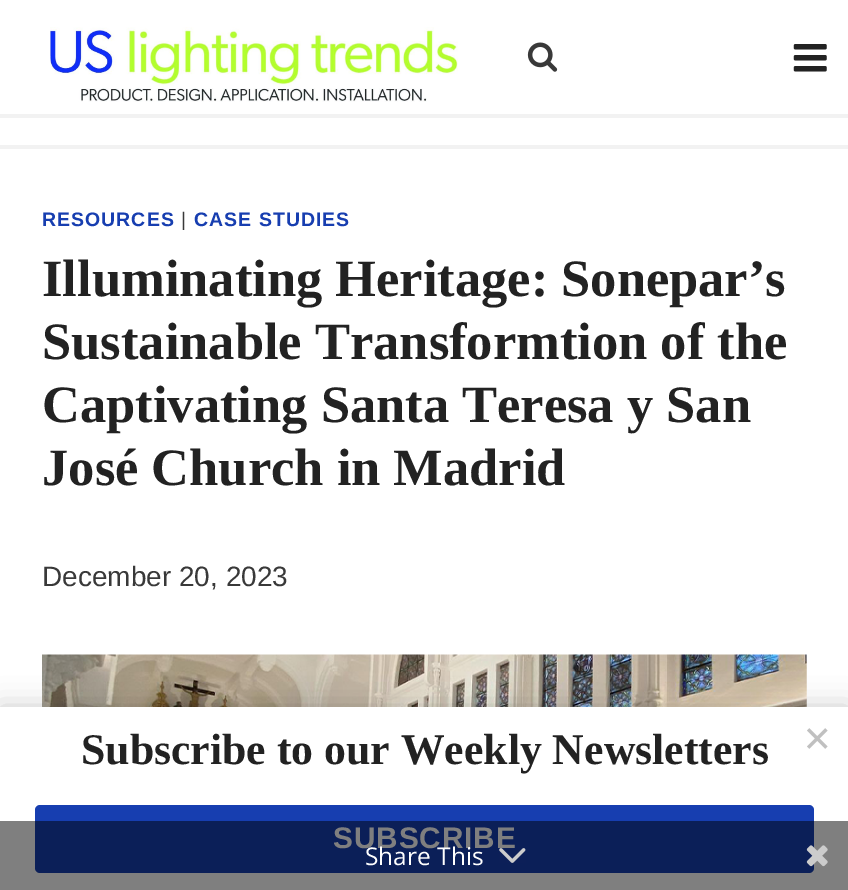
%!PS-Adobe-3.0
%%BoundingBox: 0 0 848 890
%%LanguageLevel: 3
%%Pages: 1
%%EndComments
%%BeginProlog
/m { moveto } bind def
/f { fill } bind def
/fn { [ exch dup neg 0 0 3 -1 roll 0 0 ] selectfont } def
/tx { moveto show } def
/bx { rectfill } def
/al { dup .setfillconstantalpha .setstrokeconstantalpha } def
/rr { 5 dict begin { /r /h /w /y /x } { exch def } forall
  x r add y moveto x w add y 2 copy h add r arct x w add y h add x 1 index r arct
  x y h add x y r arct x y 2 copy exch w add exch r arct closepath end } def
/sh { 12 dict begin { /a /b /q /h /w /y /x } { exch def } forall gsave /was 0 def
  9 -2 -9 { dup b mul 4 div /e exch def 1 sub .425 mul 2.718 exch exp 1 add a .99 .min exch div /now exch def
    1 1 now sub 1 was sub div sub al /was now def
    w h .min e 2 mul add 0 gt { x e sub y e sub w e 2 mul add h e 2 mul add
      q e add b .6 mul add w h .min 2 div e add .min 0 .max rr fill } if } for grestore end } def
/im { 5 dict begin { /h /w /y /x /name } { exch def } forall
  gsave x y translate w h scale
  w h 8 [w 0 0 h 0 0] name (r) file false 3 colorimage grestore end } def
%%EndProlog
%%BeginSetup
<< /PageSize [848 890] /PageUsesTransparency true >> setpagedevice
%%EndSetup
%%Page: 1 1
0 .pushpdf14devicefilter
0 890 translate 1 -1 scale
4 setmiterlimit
1 setgray
0 0 848 890 bx
0.949 setgray
0 114 848 4 bx
(image0.raw) 50 27 408 75 im
(image1.raw) 527 42 31 30 im
(image2.raw) 793 44 34 28 im
0 145 848 4 bx
/LiberationSans-Bold 19.5 fn
0.09 0.243 0.69 setrgbcolor
42 226 m 1 0 (RESOURCES) ashow
/LiberationSans-Regular 19.5 fn
0.224 setgray
181 226 m 1 0 (|) ashow
/LiberationSans-Bold 19.5 fn
0.09 0.243 0.69 setrgbcolor
194 226 m 1 0 (CASE STUDIES) ashow
/LiberationSerif-Bold 52.5 fn
0.133 setgray
(Illuminating Heritage: Sonepar’s) 42 296 tx
(Sustainable Transformtion of the) 42 359 tx
(Captivating Santa Teresa y San) 42 422 tx
(José Church in Madrid) 42 485 tx
/LiberationSans-Regular 28 fn
0.224 setgray
(December 20, 2023) 42 586 tx
(image3.raw) 42 654 765 53 im
0 setgray
0 707 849 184 0 14 0.2 sh
1 setgray
0 707 848 183 bx
/LiberationSerif-Bold 43.75 fn
0.133 setgray
(Subscribe to our Weekly Newsletters) 81 764 tx
0.09 0.243 0.69 setrgbcolor
35 805 779 68 5 rr f
/LiberationSans-Bold 29.75 fn
1 setgray
333 848 m 0.9 0 (SUBSCRIBE) ashow
(image4.raw) 807 728 21 21 im
0.5 al
0 setgray
0 821 848 69 bx
/OpenSans-Regular 24.5 fn
1 al
1 setgray
(Share This) 365 865 tx
(image5.raw) 499 848 27 15 im
(image6.raw) 806 845 22 22 im
.poppdf14devicefilter showpage
%%EOF
